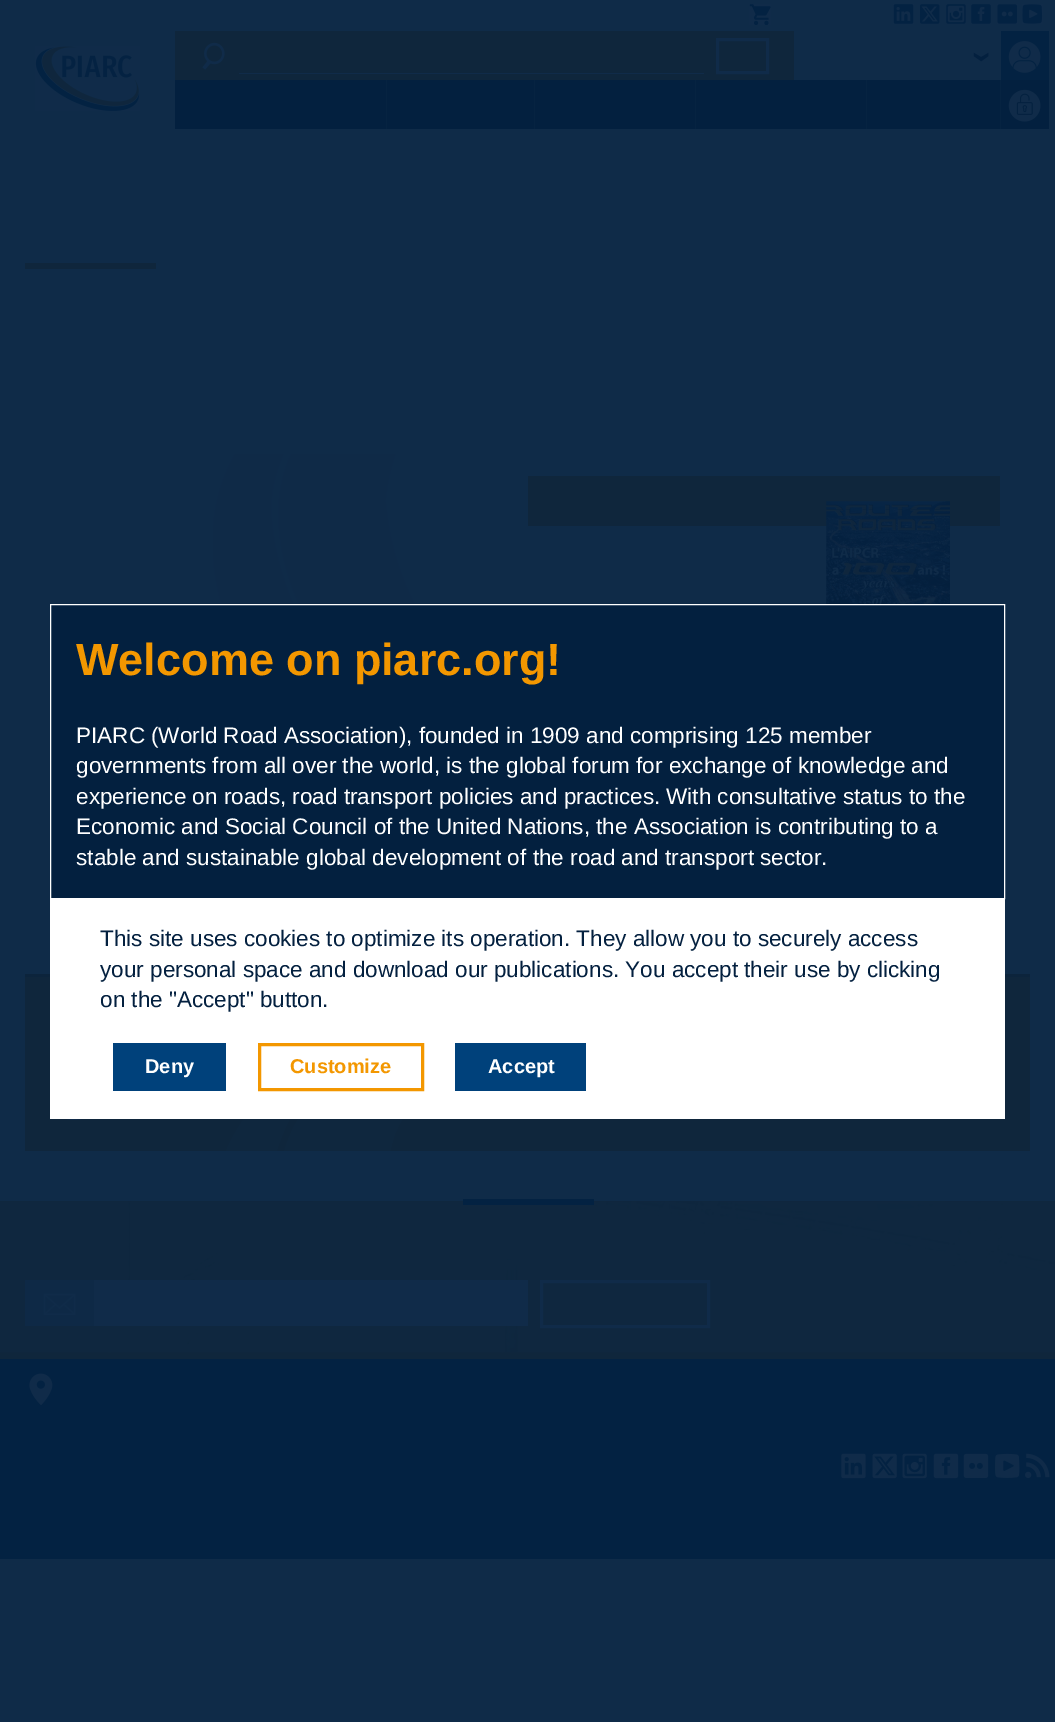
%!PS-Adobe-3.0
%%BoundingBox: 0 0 1055 1722
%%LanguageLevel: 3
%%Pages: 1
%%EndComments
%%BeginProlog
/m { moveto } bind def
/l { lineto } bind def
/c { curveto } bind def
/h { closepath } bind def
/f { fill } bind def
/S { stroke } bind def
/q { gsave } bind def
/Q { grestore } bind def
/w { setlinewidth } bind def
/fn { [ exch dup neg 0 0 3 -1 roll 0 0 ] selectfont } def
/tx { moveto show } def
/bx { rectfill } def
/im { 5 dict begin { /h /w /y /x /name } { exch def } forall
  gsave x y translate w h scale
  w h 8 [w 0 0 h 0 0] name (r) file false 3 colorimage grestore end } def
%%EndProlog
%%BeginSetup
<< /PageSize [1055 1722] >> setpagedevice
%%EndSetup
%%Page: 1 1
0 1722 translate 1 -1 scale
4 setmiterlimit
0.059 0.169 0.282 setrgbcolor
0 0 1055 1722 bx
0.012 0.125 0.247 setrgbcolor
175 80 874 49 bx
(image0.raw) 749 4 22 21 im
(image1.raw) 893 4 21 20 im
(image2.raw) 920 4 20 20 im
(image3.raw) 946 4 20 20 im
(image4.raw) 971 4 20 20 im
(image5.raw) 997 4 21 20 im
(image6.raw) 1022 4 21 20 im
(image7.raw) 35 46 105 65 im
0.059 0.149 0.235 setrgbcolor
175 31 619 49 bx
(image8.raw) 202 42 23 28 im
0.063 0.169 0.286 setrgbcolor
239 73 465 1 bx
3 w
717.5 39.5 50 33 rectstroke
(image9.raw) 973 52 16 10 im
0.024 0.137 0.255 setrgbcolor
386 80 1 49 bx
534 80 1 49 bx
695 80 1 49 bx
866 80 1 49 bx
1000 80 1 49 bx
0.012 0.133 0.259 setrgbcolor
1001 31 48 49 bx
(image10.raw) 1008 41 33 32 im
(image11.raw) 1008 89 33 33 im
0.059 0.149 0.235 setrgbcolor
25 263 131 6 bx
(image12.raw) 213 454 202 150 im
528 476 472 50 bx
(image13.raw) 826 501 124 103 im
25 977 1005 174 bx
0.047 0.141 0.235 setrgbcolor
25 974 1005 3 bx
0.063 0.169 0.286 setrgbcolor
74 1071 m 42 1071 42 1120 74 1120 c 107 1120 107 1071 74 1071 c h 66 1078 m 83 1078 l 83 1081 l 66 1081 l h 74 1115 m 60 1101 l 66 1101 l 66 1083 l 83 1083 l 83 1101 l 88 1101 l h f
(image14.raw) 225 1119 178 32 im
0.012 0.125 0.247 setrgbcolor
50.5 604.5 m 1004.5 604.5 l 1004.5 898.5 l 50.5 898.5 l h q f Q
1 setgray
1 w
S
/LiberationSans-Bold 45 fn
0.953 0.592 0 setrgbcolor
(Welcome on piarc.org!) 76 675 tx
/LiberationSans-Regular 22.5 fn
1 setgray
(PIARC \(World Road Association\), founded in 1909 and comprising 125 member) 76 743 tx
(governments from all over the world, is the global forum for exchange of knowledge and) 76 773 tx
(experience on roads, road transport policies and practices. With consultative status to the) 76 804 tx
(Economic and Social Council of the United Nations, the Association is contributing to a) 76 834 tx
(stable and sustainable global development of the road and transport sector.) 76 865 tx
50 899 955 220 bx
0.012 0.125 0.247 setrgbcolor
(This site uses cookies to optimize its operation. They allow you to securely access) 100 946 tx
(your personal space and download our publications. You accept their use by clicking) 100 977 tx
(on the "Accept" button.) 100 1007 tx
0 0.255 0.482 setrgbcolor
113 1043 113 48 bx
/LiberationSans-Bold 20 fn
1 setgray
(Deny) 145 1073 tx
0.953 0.592 0 setrgbcolor
3 w
259.5 1044.5 163 45 rectstroke
(Customize) 290 1073 tx
0 0.255 0.482 setrgbcolor
455 1043 131 48 bx
1 setgray
(Accept) 488 1073 tx
0.059 0.149 0.235 setrgbcolor
0 1201 1055 158 bx
(image15.raw) 0 1201 1055 152 im
0.012 0.133 0.259 setrgbcolor
463 1199 131 6 bx
0.055 0.161 0.275 setrgbcolor
25 1280 69 46 bx
(image16.raw) 43 1293 33 22 im
0.063 0.169 0.286 setrgbcolor
94 1280 434 46 bx
541.5 1281.5 167 45 rectstroke
0.012 0.133 0.259 setrgbcolor
0 1359 1055 200 bx
(image17.raw) 29 1373 24 33 im
(image18.raw) 841 1453 25 26 im
(image19.raw) 872 1453 25 26 im
(image20.raw) 902 1453 25 26 im
(image21.raw) 933 1453 26 26 im
(image22.raw) 963 1453 26 25 im
(image23.raw) 995 1453 25 25 im
(image24.raw) 1025 1453 25 26 im
showpage
%%EOF
